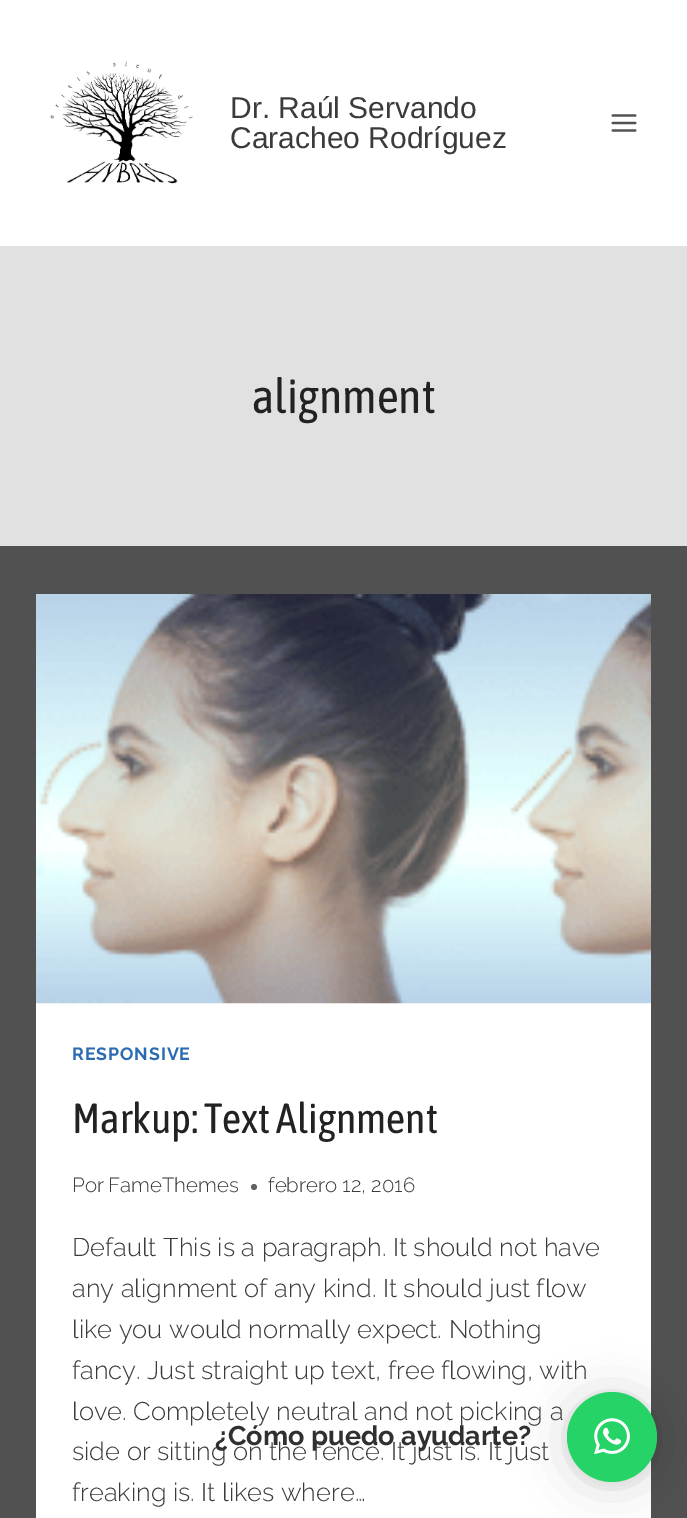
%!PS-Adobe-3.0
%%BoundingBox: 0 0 687 1518
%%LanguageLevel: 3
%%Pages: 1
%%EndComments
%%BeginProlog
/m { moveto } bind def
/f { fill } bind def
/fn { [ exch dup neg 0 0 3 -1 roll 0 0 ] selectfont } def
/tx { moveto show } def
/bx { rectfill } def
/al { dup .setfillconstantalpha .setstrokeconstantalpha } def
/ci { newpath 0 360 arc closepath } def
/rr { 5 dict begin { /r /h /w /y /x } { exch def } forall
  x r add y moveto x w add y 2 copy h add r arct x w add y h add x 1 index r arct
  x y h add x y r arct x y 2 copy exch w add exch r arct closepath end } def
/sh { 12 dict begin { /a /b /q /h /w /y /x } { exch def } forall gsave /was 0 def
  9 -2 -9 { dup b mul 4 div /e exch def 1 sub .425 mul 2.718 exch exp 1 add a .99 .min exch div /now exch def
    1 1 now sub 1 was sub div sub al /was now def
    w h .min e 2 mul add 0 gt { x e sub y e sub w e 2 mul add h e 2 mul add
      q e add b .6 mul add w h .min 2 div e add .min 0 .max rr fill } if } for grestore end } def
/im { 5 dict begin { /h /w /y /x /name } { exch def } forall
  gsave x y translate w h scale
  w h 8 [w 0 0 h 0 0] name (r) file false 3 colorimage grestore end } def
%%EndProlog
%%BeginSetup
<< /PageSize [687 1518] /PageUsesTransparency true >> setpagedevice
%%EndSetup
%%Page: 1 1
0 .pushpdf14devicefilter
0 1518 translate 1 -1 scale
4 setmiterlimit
0.318 setgray
0 0 687 1518 bx
1 setgray
0 0 687 246 bx
(image0.raw) 50 61 143 123 im
/LiberationSans-Regular 30 fn
0.231 setgray
(Dr. Raúl Servando) 230 118 tx
(Caracheo Rodríguez) 230 148 tx
(image1.raw) 611 114 26 18 im
0.882 setgray
0 246 687 300 bx
/AsapCondensed-Regular 48 fn
0.133 setgray
(alignment) 252 413 tx
1 setgray
36 1003 615 515 bx
(image2.raw) 36 594 615 410 im
/Raleway-Bold 17.75 fn
0.169 0.424 0.69 setrgbcolor
72 1060 m 0.9 0 (RESPONSIVE) ashow
/AsapCondensed-Regular 42 fn
0.133 setgray
(Markup: Text Alignment) 72 1133 tx
/Raleway-Light 20.5 fn
0.231 setgray
(Por) 72 1192 tx
(FameThemes) 108 1192 tx
0.384 setgray
254 1187 3 ci f
0.231 setgray
(febrero 12, 2016) 268 1192 tx
/Raleway-Light 25.5 fn
(Default This is a paragraph. It should not have) 72 1256 tx
(any alignment of any kind. It should just flow) 72 1297 tx
(like you would normally expect. Nothing) 72 1338 tx
(fancy. Just straight up text, free flowing, with) 72 1379 tx
(love. Completely neutral and not picking a) 72 1420 tx
(side or sitting on the fence. It just is. It just) 72 1460 tx
(freaking is. It likes where…) 72 1501 tx
0 setgray
567 1395 90 90 45 24 0.16 sh
567 1394 90 90 45 4.5 0.06 sh
0.145 0.827 0.4 setrgbcolor
612 1437 45 ci f
/Raleway-Bold 27 fn
0.188 setgray
(¿Cómo puedo ayudarte?) 215 1445 tx
(image3.raw) 594 1418 36 37 im
.poppdf14devicefilter showpage
%%EOF
